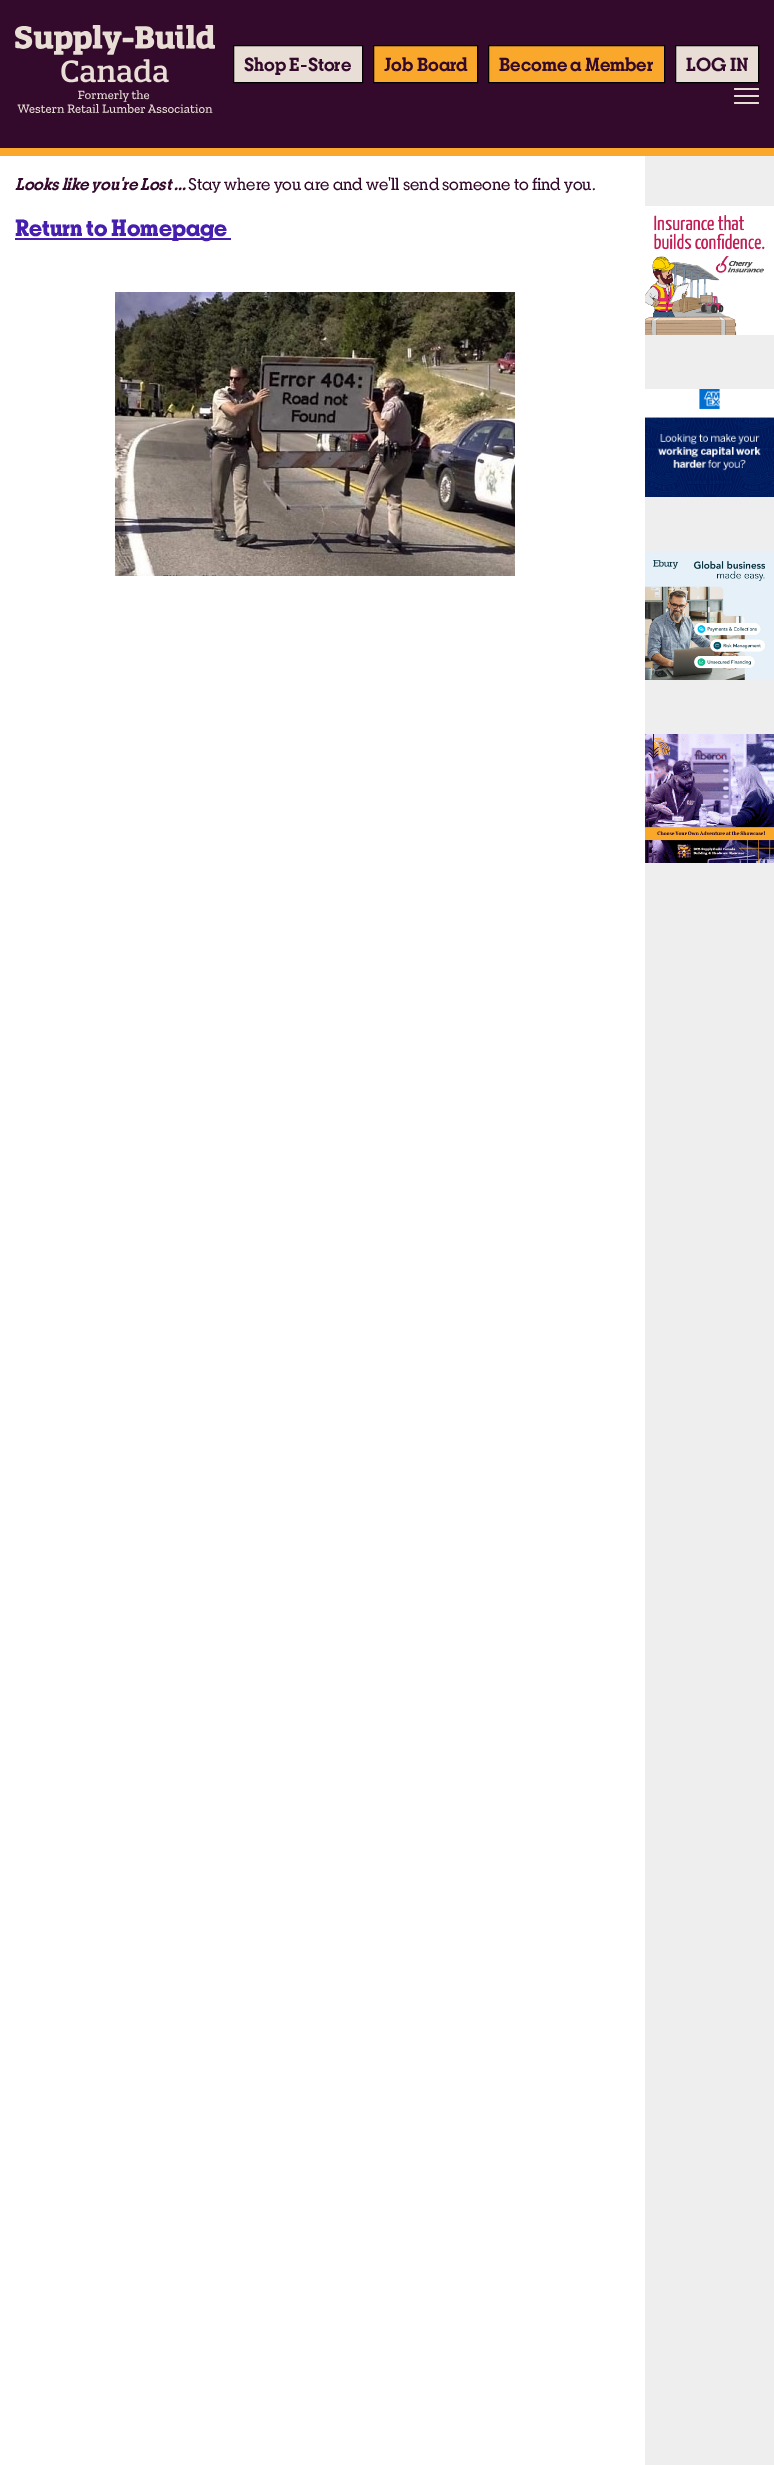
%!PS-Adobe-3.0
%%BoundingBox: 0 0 774 2465
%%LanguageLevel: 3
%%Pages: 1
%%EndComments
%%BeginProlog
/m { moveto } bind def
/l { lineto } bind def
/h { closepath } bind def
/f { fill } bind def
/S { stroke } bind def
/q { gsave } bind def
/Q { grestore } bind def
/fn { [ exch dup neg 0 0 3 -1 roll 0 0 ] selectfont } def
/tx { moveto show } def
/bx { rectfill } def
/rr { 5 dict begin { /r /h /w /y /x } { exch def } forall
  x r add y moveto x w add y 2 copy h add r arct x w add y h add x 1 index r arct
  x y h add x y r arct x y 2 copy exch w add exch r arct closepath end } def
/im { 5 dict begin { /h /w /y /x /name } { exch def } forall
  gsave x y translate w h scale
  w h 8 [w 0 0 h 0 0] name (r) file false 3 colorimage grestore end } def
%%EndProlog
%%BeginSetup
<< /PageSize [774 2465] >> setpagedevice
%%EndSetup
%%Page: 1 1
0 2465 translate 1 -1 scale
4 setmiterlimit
1 setgray
0 0 774 2465 bx
0.2 0.039 0.169 setrgbcolor
0 0 774 148 bx
0.98 0.659 0.169 setrgbcolor
0 148 774 8 bx
(image0.raw) 15 25 200 88 im
0.91 0.871 0.839 setrgbcolor
233.5 45.5 m 362.5 45.5 l 362.5 82.5 l 233.5 82.5 l h q f Q
0 setgray
S
/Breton-SemiBold 20 fn
0.2 0.039 0.169 setrgbcolor
(Shop E-Store) 244 71 tx
0.98 0.659 0.169 setrgbcolor
373.5 45.5 m 477.5 45.5 l 477.5 82.5 l 373.5 82.5 l h q f Q
0 setgray
S
0.2 0.039 0.169 setrgbcolor
(Job Board) 384 71 tx
0.98 0.659 0.169 setrgbcolor
488.5 45.5 m 664.5 45.5 l 664.5 82.5 l 488.5 82.5 l h q f Q
0 setgray
S
0.2 0.039 0.169 setrgbcolor
(Become a Member) 499 71 tx
0.91 0.871 0.839 setrgbcolor
675.5 45.5 m 758.5 45.5 l 758.5 82.5 l 675.5 82.5 l h q f Q
0 setgray
S
0.2 0.039 0.169 setrgbcolor
(LOG IN) 686 71 tx
0.91 0.871 0.839 setrgbcolor
734 88 25 2 1 rr f
734 95 25 2 1 rr f
734 102 25 2 1 rr f
/Breton-SemiBoldItalic 18 fn
0.2 0.039 0.169 setrgbcolor
(Looks like you're Lost ...) 15 190 tx
/Breton-Regular 18 fn
(Stay where you are and we'll send someone to find you.) 188 190 tx
0.278 0.122 0.69 setrgbcolor
15 238 216 2 bx
/Breton-Bold 25 fn
(Return to Homepage) 15 236 tx
(image1.raw) 115 292 400 284 im
0.933 setgray
645 156 129 2309 bx
(image2.raw) 645 206 129 657 im
showpage
%%EOF
